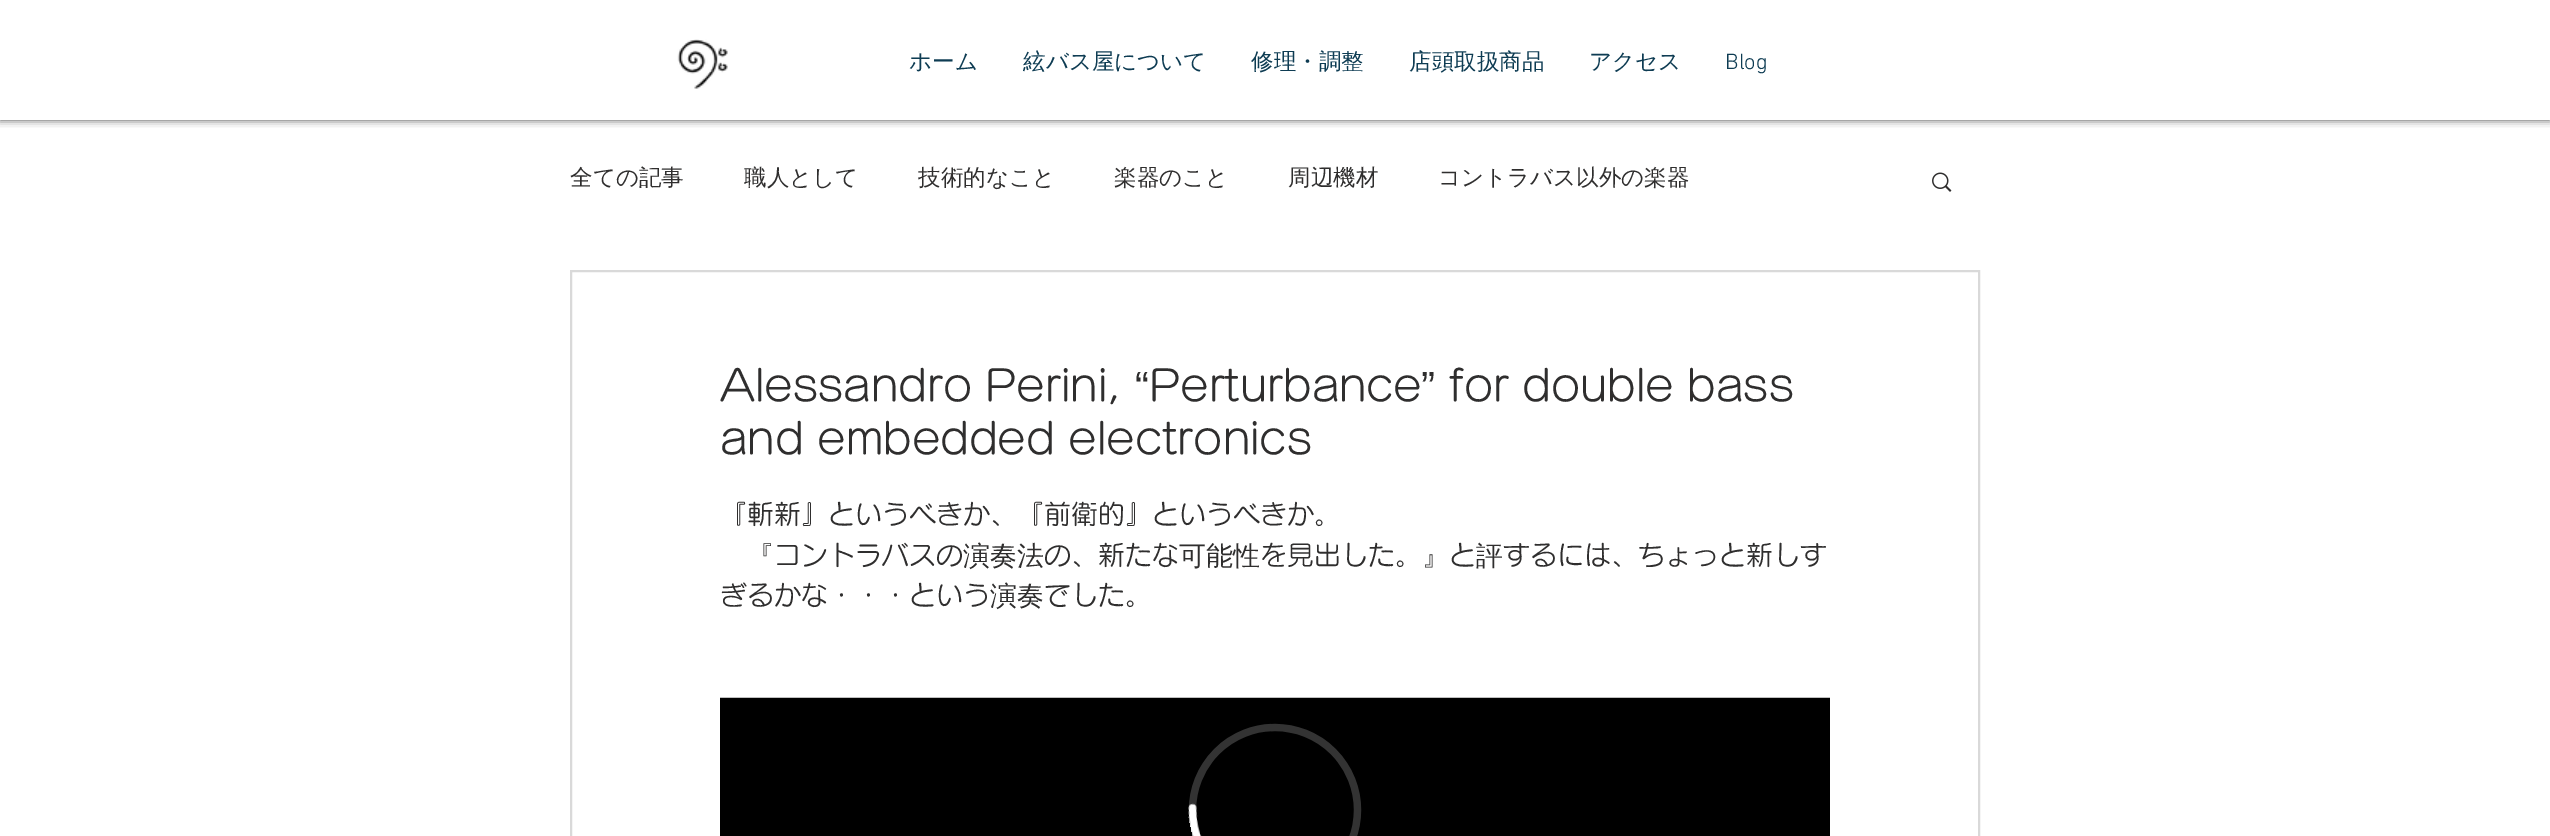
%!PS-Adobe-3.0
%%BoundingBox: 0 0 2550 836
%%LanguageLevel: 3
%%Pages: 1
%%EndComments
%%BeginProlog
/q { gsave } bind def
/Q { grestore } bind def
/w { setlinewidth } bind def
/fn { [ exch dup neg 0 0 3 -1 roll 0 0 ] selectfont } def
/tx { moveto show } def
/bx { rectfill } def
/al { dup .setfillconstantalpha .setstrokeconstantalpha } def
/rr { 5 dict begin { /r /h /w /y /x } { exch def } forall
  x r add y moveto x w add y 2 copy h add r arct x w add y h add x 1 index r arct
  x y h add x y r arct x y 2 copy exch w add exch r arct closepath end } def
/sh { 12 dict begin { /a /b /q /h /w /y /x } { exch def } forall gsave /was 0 def
  9 -2 -9 { dup b mul 4 div /e exch def 1 sub .425 mul 2.718 exch exp 1 add a .99 .min exch div /now exch def
    1 1 now sub 1 was sub div sub al /was now def
    w h .min e 2 mul add 0 gt { x e sub y e sub w e 2 mul add h e 2 mul add
      q e add b .6 mul add w h .min 2 div e add .min 0 .max rr fill } if } for grestore end } def
/im { 5 dict begin { /h /w /y /x /name } { exch def } forall
  gsave x y translate w h scale
  w h 8 [w 0 0 h 0 0] name (r) file false 3 colorimage grestore end } def
%%EndProlog
%%BeginSetup
<< /PageSize [2550 836] /PageUsesTransparency true >> setpagedevice
%%EndSetup
%%Page: 1 1
0 .pushpdf14devicefilter
0 836 translate 1 -1 scale
4 setmiterlimit
1 setgray
0 0 2550 836 bx
q
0 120 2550 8 rectclip
0 setgray
0 0 2550 120 0 4 0.7 sh
Q
(image0.raw) 677 39 51 50 im
/WenQuanYiZenHei-Medium 22.5 fn
0.055 0.235 0.325 setrgbcolor
(ホーム) 909 69 tx
(絃バス屋について) 1023 69 tx
(修理・調整) 1251 69 tx
(店頭取扱商品) 1409 69 tx
(アクセス) 1589 69 tx
/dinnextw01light-Light 22.5 fn
(Blog) 1725 69 tx
/WenQuanYiZenHei-Medium 22.5 fn
0.184 0.18 0.18 setrgbcolor
(全ての記事) 570 185 tx
(職人として) 744 185 tx
(技術的なこと) 918 185 tx
(楽器のこと) 1114 185 tx
(周辺機材) 1288 185 tx
(コントラバス以外の楽器) 1438 185 tx
(image1.raw) 1932 172 20 20 im
0.851 setgray
2 w
571 271 1408 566 rectstroke
/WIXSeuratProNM-Medium 42 fn
0.184 0.18 0.18 setrgbcolor
(Alessandro Perini,) 720 401 tx
/LiberationSans-Regular 42 fn
(“) 1135 401 tx
/WIXSeuratProNM-Medium 42 fn
(Perturbance) 1149 401 tx
/LiberationSans-Regular 42 fn
(”) 1421 401 tx
/WIXSeuratProNM-Medium 42 fn
(for double bass) 1449 401 tx
(and embedded electronics) 720 454 tx
/WIXSeuratProNM-Medium 27 fn
(『斬新』というべきか、『前衛的』というべきか。) 720 524 tx
/WenQuanYiZenHei-Medium 27 fn
(『) 747 565 tx
/WIXSeuratProNM-Medium 27 fn
(コントラバスの) 774 565 tx
/WenQuanYiZenHei-Medium 27 fn
(演奏法) 963 565 tx
/WIXSeuratProNM-Medium 27 fn
(の、新たな) 1044 565 tx
/WenQuanYiZenHei-Medium 27 fn
(可能性) 1179 565 tx
/WIXSeuratProNM-Medium 27 fn
(を見出した。) 1260 565 tx
(と) 1449 565 tx
/WenQuanYiZenHei-Medium 27 fn
(評) 1476 565 tx
/WIXSeuratProNM-Medium 27 fn
(するには、ちょっと新しす) 1503 565 tx
/WenQuanYiZenHei-Medium 27 fn
(』) 1422 565 tx
/WIXSeuratProNM-Medium 27 fn
(ぎるかな・・・という) 720 605 tx
/WenQuanYiZenHei-Medium 27 fn
(演奏) 990 605 tx
/WIXSeuratProNM-Medium 27 fn
(でした。) 1044 605 tx
(image2.raw) 720 697 1110 139 im
.poppdf14devicefilter showpage
%%EOF
